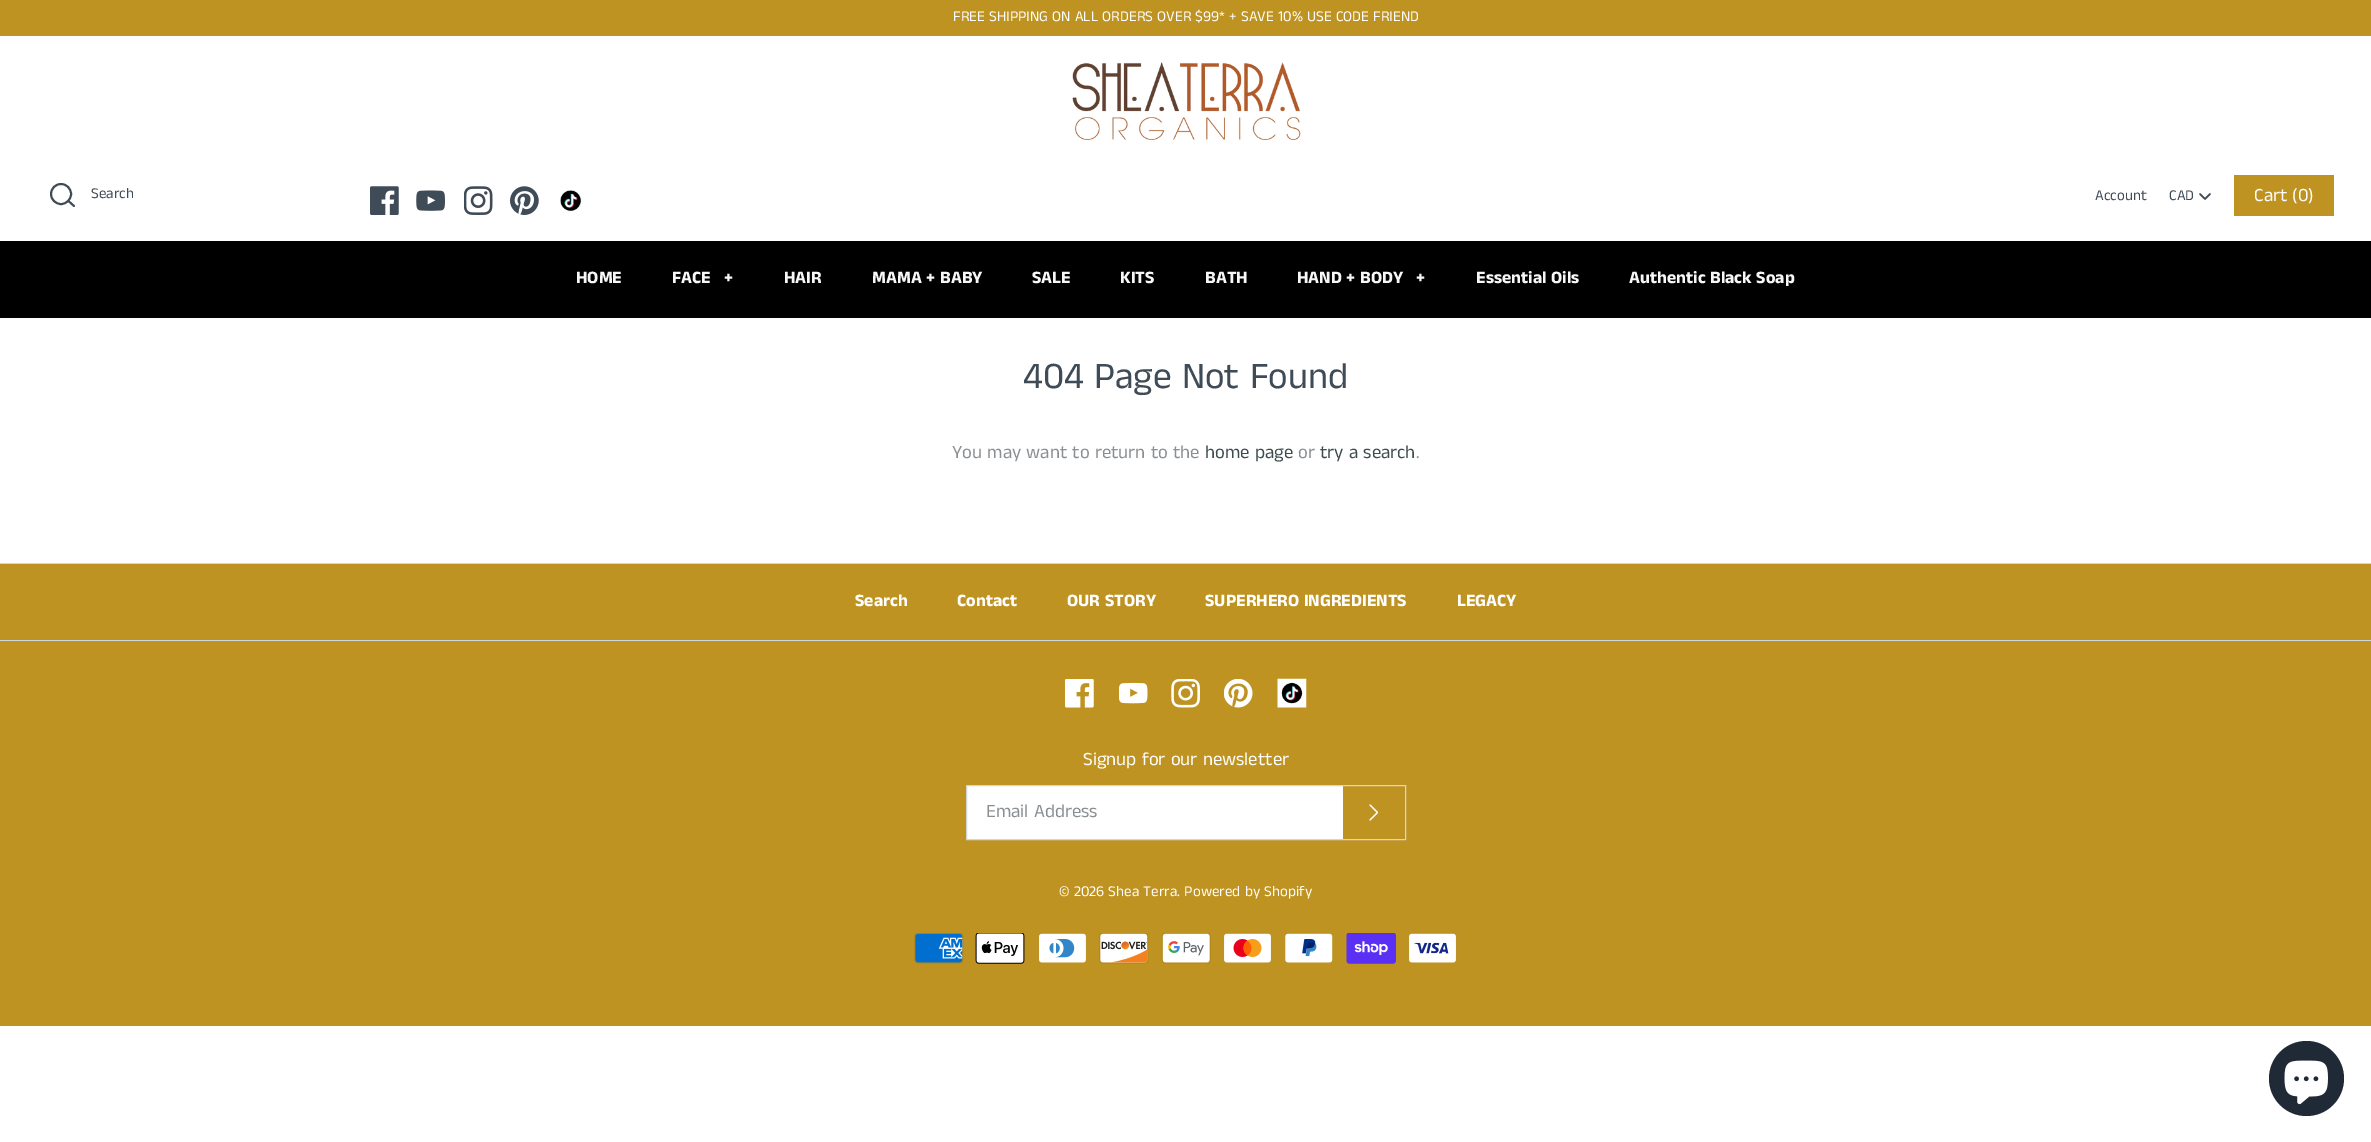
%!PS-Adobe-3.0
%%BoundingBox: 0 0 2371 1142
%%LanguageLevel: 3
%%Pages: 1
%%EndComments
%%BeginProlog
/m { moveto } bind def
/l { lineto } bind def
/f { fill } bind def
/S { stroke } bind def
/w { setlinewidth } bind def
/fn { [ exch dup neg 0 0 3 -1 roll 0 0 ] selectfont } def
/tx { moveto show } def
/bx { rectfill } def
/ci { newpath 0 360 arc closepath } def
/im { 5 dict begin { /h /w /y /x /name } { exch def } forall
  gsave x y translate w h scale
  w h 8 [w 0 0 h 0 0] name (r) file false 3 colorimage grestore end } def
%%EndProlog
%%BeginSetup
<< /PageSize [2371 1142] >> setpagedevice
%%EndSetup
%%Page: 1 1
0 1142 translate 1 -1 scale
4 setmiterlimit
1 setgray
0 0 2371 1142 bx
0.749 0.576 0.129 setrgbcolor
0 0 2371 36 bx
/AnekTamil-Regular 15 fn
1 setgray
(FREE SHIPPING ON ALL ORDERS OVER $99* + SAVE 10% USE CODE FRIEND) 953 21 tx
(image0.raw) 1072 62 229 78 im
0.247 0.294 0.341 setrgbcolor
1.9 w
61 194 10 ci S
1 setlinecap
1 setlinejoin
74 206 m 68.5 201 l S
(Search) 91 198 tx
(image1.raw) 370 186 29 29 im
(image2.raw) 416 190 29 21 im
(image3.raw) 464 186 29 29 im
(image4.raw) 510 186 29 29 im
(image5.raw) 560 190 22 22 im
(Account) 2095 200 tx
(CAD) 2169 200 tx
1.7 w
2200 194 m 2205 199 l 2210 194 l S
0.749 0.576 0.129 setrgbcolor
2234 175 100 41 bx
/AnekTamil-Regular 18.75 fn
1 setgray
(Cart \(0\)) 2254 201 tx
0 setgray
0 241 2371 77 bx
/AnekTamil-Bold 17.5 fn
0.969 setgray
(HOME) 576 283 tx
(FACE) 672 283 tx
(+) 724 283 tx
(HAIR) 784 283 tx
(MAMA + BABY) 872 283 tx
(SALE) 1032 283 tx
(KITS) 1120 283 tx
(BATH) 1205 283 tx
(HAND + BODY) 1297 283 tx
(+) 1416 283 tx
(Essential Oils) 1476 283 tx
(Authentic Black Soap) 1629 283 tx
/AnekTamil-Regular 37.5 fn
0.247 0.294 0.341 setrgbcolor
(404 Page Not Found) 1023 388 tx
/AnekTamil-Regular 18.75 fn
0.541 0.561 0.576 setrgbcolor
(You may want to return to the) 952 458 tx
0.239 0.298 0.31 setrgbcolor
(home page) 1205 458 tx
0.541 0.561 0.576 setrgbcolor
(or) 1298 458 tx
0.239 0.298 0.31 setrgbcolor
(try a search) 1320 458 tx
0.541 0.561 0.576 setrgbcolor
(.) 1416 458 tx
0.749 0.576 0.129 setrgbcolor
0 564 2371 462 bx
0.82 0.839 0.851 setrgbcolor
0 563 2371 1 bx
0 640 2371 1 bx
/AnekTamil-Bold 17.5 fn
1 setgray
(Search) 855 606 tx
(Contact) 957 606 tx
(OUR STORY) 1067 606 tx
(SUPERHERO INGREDIENTS) 1205 606 tx
(LEGACY) 1457 606 tx
(image6.raw) 1065 679 29 29 im
(image7.raw) 1119 682 29 22 im
(image8.raw) 1171 679 29 29 im
(image9.raw) 1224 679 29 29 im
(image10.raw) 1277 678 30 30 im
/AnekTamil-Regular 18.75 fn
(Signup for our newsletter) 1083 765 tx
967 786 376 53 bx
0.82 0.839 0.851 setrgbcolor
1 w
0 setlinecap
0 setlinejoin
966.5 785.5 439 54 rectstroke
0.541 0.561 0.576 setrgbcolor
(Email Address) 986 817 tx
1 setgray
1.2 w
1 setlinecap
1 setlinejoin
1370 820 m 1377.5 812.5 l 1370 805 l S
/AnekTamil-Regular 15 fn
(© 2026 Shea Terra. Powered by Shopify) 1059 896 tx
(image11.raw) 914 933 50 31 im
(image12.raw) 975 933 50 31 im
(image13.raw) 1038 933 49 31 im
(image14.raw) 1099 933 50 31 im
(image15.raw) 1161 933 50 31 im
(image16.raw) 1223 933 49 31 im
(image17.raw) 1284 933 50 31 im
(image18.raw) 1346 933 50 31 im
(image19.raw) 1408 933 49 31 im
0.125 0.165 0.212 setrgbcolor
2306.5 1078.5 37.5 ci f
(image20.raw) 2284 1060 44 45 im
showpage
%%EOF
